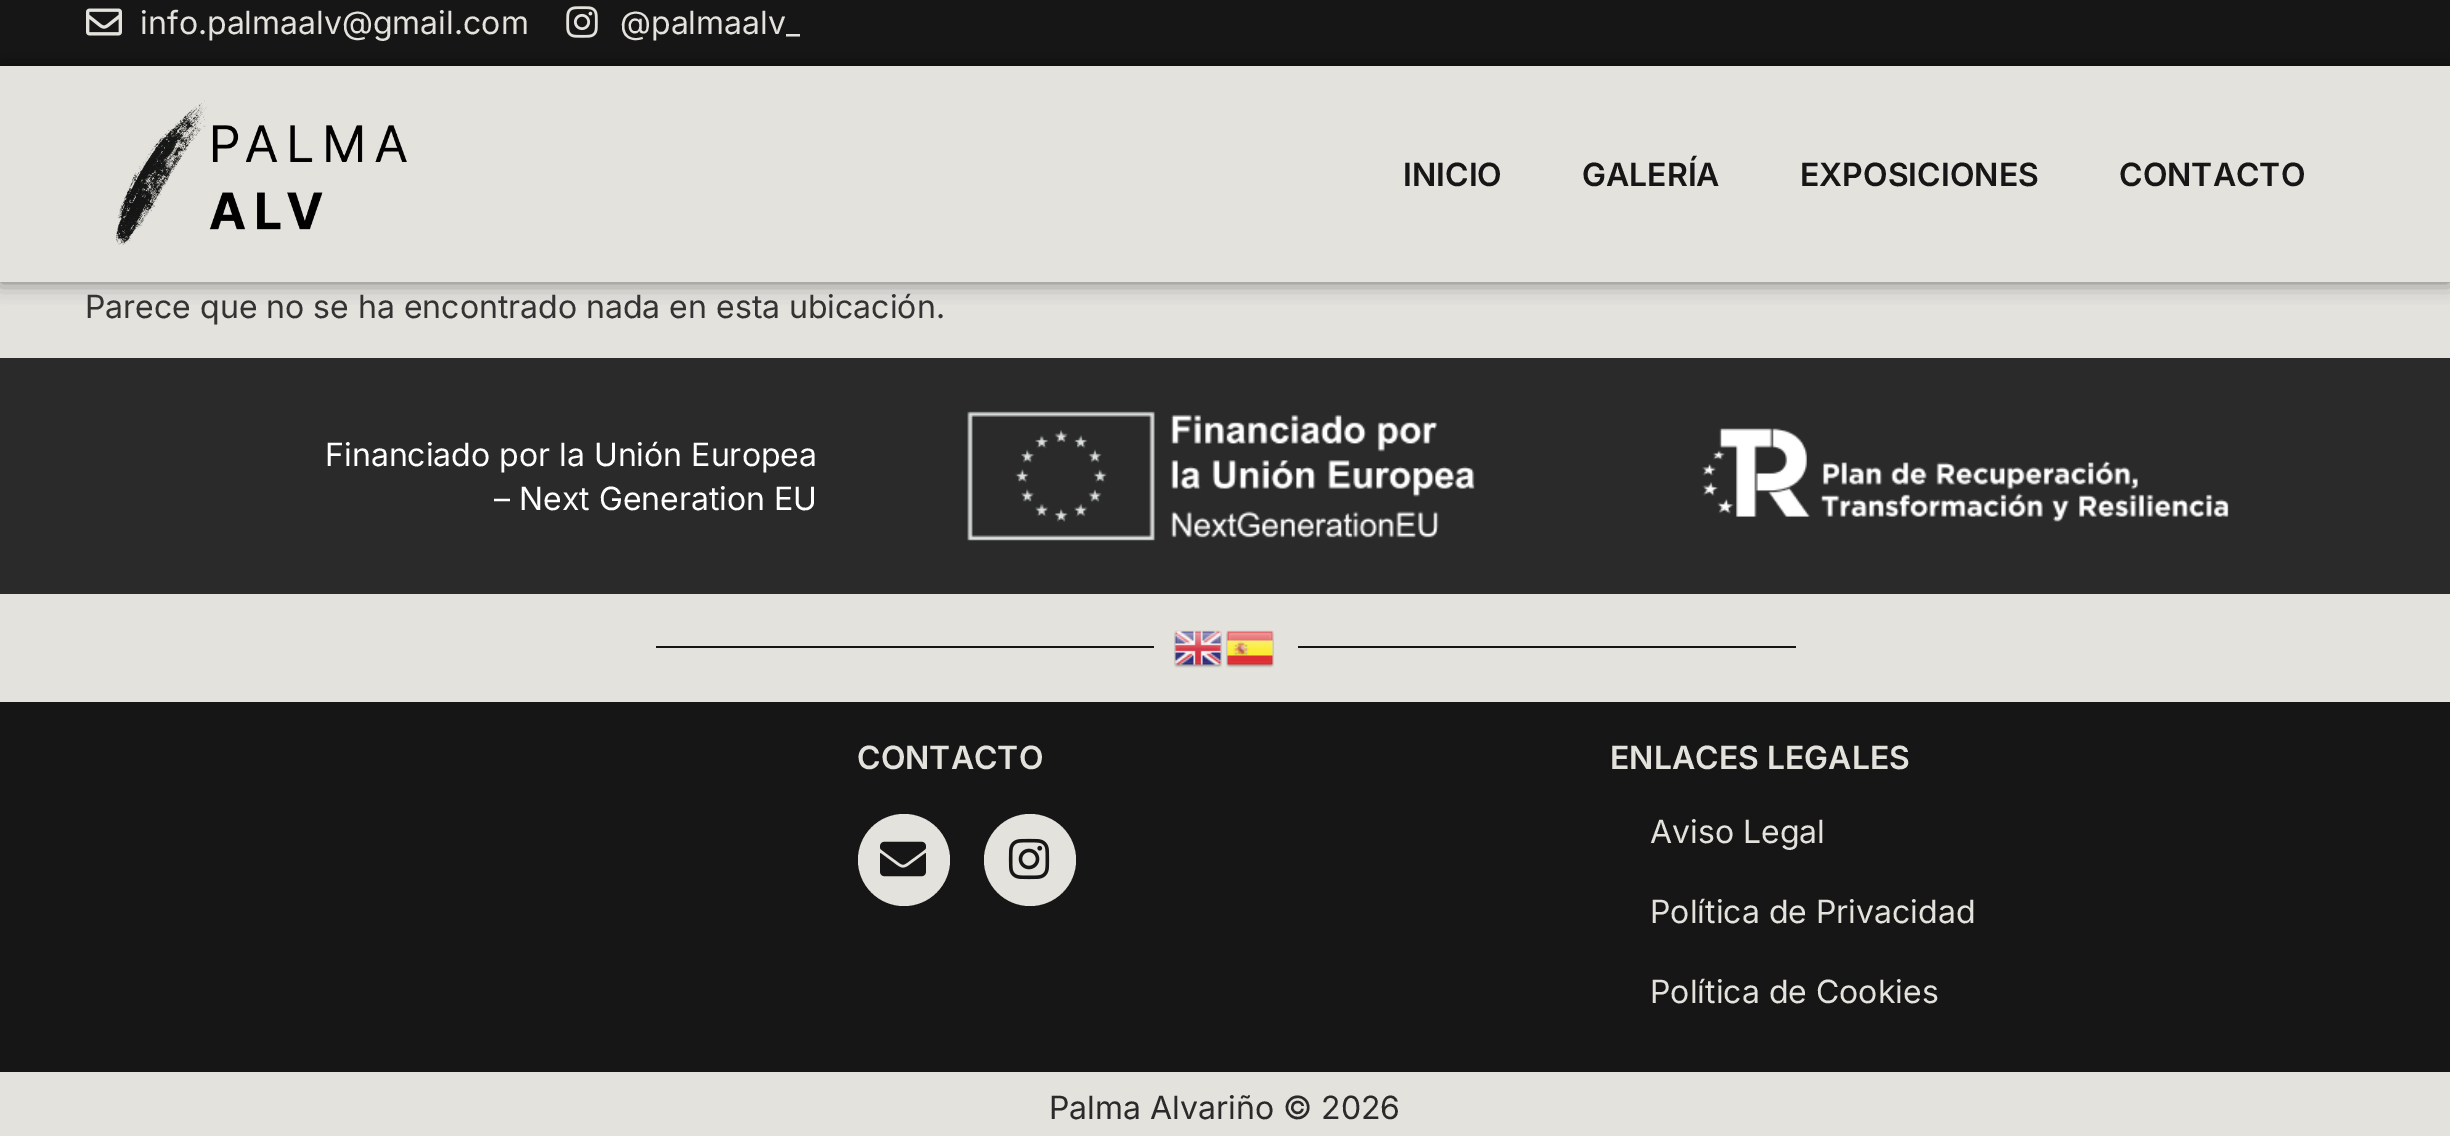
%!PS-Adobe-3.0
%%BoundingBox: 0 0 2450 1136
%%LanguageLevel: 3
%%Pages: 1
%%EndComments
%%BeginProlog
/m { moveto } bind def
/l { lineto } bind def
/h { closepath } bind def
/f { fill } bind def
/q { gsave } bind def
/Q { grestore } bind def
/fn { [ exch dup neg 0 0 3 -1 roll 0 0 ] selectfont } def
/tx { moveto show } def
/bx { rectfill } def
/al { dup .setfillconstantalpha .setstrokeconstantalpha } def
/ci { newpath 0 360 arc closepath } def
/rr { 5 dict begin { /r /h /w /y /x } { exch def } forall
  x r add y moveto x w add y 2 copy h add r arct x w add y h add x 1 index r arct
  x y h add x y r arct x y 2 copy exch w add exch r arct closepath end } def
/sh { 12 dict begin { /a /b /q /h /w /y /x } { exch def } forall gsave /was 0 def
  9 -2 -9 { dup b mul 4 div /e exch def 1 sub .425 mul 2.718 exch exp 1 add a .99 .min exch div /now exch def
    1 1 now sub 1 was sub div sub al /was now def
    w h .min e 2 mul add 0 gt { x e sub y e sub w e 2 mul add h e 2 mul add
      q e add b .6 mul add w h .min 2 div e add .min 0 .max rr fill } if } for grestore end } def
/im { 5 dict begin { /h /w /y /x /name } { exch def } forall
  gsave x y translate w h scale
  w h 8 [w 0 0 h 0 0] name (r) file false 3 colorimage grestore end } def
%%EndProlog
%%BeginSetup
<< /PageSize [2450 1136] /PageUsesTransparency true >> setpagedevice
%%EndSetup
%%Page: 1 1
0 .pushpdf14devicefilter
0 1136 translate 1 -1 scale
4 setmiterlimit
0.894 0.886 0.867 setrgbcolor
0 0 2450 1136 bx
0.086 setgray
0 0 2450 66 bx
(image0.raw) 86 8 36 28 im
/Inter-Regular 32 fn
0.894 0.886 0.867 setrgbcolor
(info.palmaalv@gmail.com) 140 34 tx
(image1.raw) 566 6 32 32 im
q
86 0 714 46 rectclip
(@palmaalv_) 620 34 tx
Q
q
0 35 m 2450 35 l 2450 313 l 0 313 l h 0 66 m 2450 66 l 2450 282 l 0 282 l h eoclip newpath
0 setgray
0 66 2450 216 0 10 0.5 sh
Q
(image2.raw) 116 100 291 145 im
/Inter-SemiBold 32 fn
0.086 setgray
(INICIO) 1403 186 tx
(GALERÍA) 1582 186 tx
(EXPOSICIONES) 1800 186 tx
(CONTACTO) 2119 186 tx
/Inter-Regular 32 fn
0.2 setgray
(Parece que no se ha encontrado nada en esta ubicación.) 85 318 tx
0.165 setgray
0 358 2450 236 bx
1 setgray
(Financiado por la Unión Europea) 325 466 tx
(– Next Generation EU) 494 510 tx
(image3.raw) 967 411 508 130 im
(image4.raw) 1702 428 527 94 im
0.086 setgray
656 646 498 2 bx
(image5.raw) 1174 630 48 38 im
(image6.raw) 1226 630 48 38 im
1298 646 498 2 bx
0 702 2450 370 bx
/Inter-SemiBold 32 fn
0.894 0.886 0.867 setrgbcolor
(CONTACTO) 857 769 tx
904 860 46 ci f
(image7.raw) 880 841 46 36 im
1030 860 46 ci f
(image8.raw) 1008 838 42 42 im
(ENLACES LEGALES) 1610 769 tx
/Inter-Regular 32 fn
(Aviso Legal) 1650 843 tx
(Política de Privacidad) 1650 923 tx
(Política de Cookies) 1650 1003 tx
0.165 setgray
(Palma Alvariño © 2026) 1049 1119 tx
.poppdf14devicefilter showpage
%%EOF
